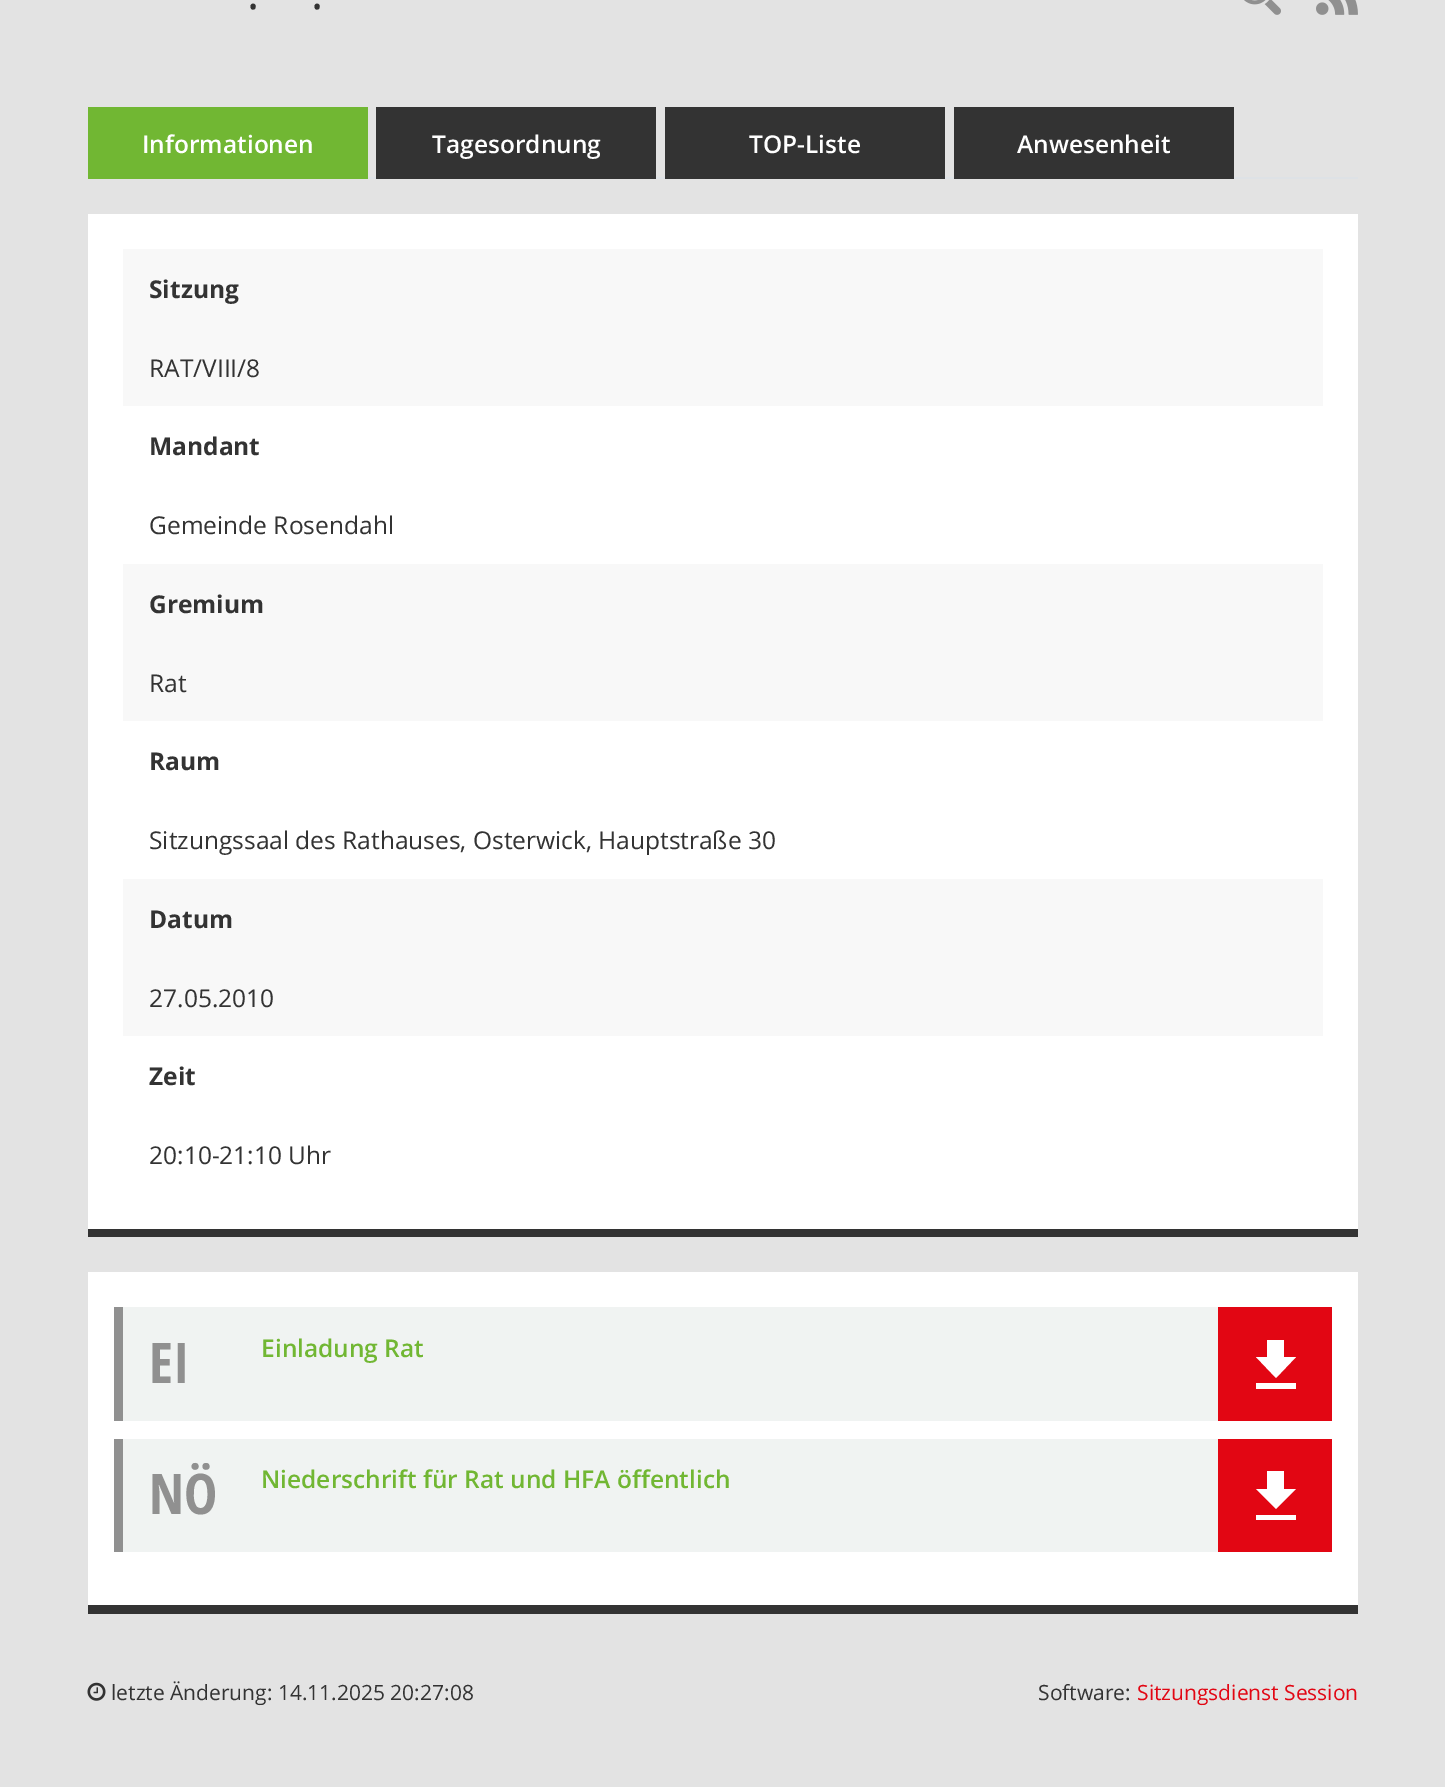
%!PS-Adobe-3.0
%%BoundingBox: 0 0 1445 1787
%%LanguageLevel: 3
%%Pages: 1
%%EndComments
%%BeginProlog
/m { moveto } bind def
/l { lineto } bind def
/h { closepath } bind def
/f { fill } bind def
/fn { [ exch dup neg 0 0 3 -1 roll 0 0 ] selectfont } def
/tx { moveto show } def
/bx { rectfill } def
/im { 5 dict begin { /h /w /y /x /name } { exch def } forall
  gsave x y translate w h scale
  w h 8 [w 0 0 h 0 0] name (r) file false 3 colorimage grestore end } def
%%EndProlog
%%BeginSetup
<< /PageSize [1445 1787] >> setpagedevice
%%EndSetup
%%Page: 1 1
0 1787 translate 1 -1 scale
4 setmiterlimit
0.89 setgray
0 0 1445 1787 bx
/OpenSans-Regular 46 fn
0.2 setgray
(.) 247 9 tx
(.) 311 9 tx
(image0.raw) 1244 0 37 15 im
(image1.raw) 1316 0 42 15 im
0.871 0.886 0.902 setrgbcolor
368 177 990 2 bx
0.443 0.718 0.2 setrgbcolor
88 107 280 72 bx
/OpenSans-SemiBold 24.5 fn
1 setgray
(Informationen) 142 153 tx
0.2 setgray
376 107 280 72 bx
1 setgray
(Tagesordnung) 432 153 tx
0.2 setgray
665 107 280 72 bx
1 setgray
(TOP-Liste) 749 153 tx
0.2 setgray
954 107 280 72 bx
1 setgray
(Anwesenheit) 1017 153 tx
88 214 1270 1015 bx
0.2 setgray
88 1229 1270 8 bx
0.973 setgray
123 249 1200 157 bx
/OpenSans-Bold 24.5 fn
0.2 setgray
(Sitzung) 149 298 tx
/OpenSans-Regular 24.5 fn
(RAT/VIII/8) 149 377 tx
/OpenSans-Bold 24.5 fn
(Mandant) 149 455 tx
/OpenSans-Regular 24.5 fn
(Gemeinde Rosendahl) 149 534 tx
0.973 setgray
123 564 1200 157 bx
/OpenSans-Bold 24.5 fn
0.2 setgray
(Gremium) 149 613 tx
/OpenSans-Regular 24.5 fn
(Rat) 149 692 tx
/OpenSans-Bold 24.5 fn
(Raum) 149 770 tx
/OpenSans-Regular 24.5 fn
(Sitzungssaal des Rathauses, Osterwick, Hauptstraße 30) 149 849 tx
0.973 setgray
123 879 1200 157 bx
/OpenSans-Bold 24.5 fn
0.2 setgray
(Datum) 149 928 tx
/OpenSans-Regular 24.5 fn
(27.05.2010) 149 1007 tx
/OpenSans-Bold 24.5 fn
(Zeit) 149 1085 tx
/OpenSans-Regular 24.5 fn
(20:10-21:10 Uhr) 149 1164 tx
1 setgray
88 1272 1270 333 bx
0.2 setgray
88 1605 1270 9 bx
0.941 0.953 0.949 setrgbcolor
123 1307 1095 114 bx
0.565 setgray
114 1307 9 114 bx
/OpenSansCondensed-Bold 56 fn
(EI) 149 1383 tx
/OpenSans-SemiBold 24.5 fn
0.443 0.718 0.2 setrgbcolor
(Einladung Rat) 261 1357 tx
0.886 0.024 0.075 setrgbcolor
1218 1307 114 114 bx
1 setgray
1296 1357 m 1284 1357 l 1284 1340 l 1267 1340 l 1267 1357 l 1256 1357 l 1276 1378 l h 1256 1383 m 1256 1389 l 1296 1389 l 1296 1383 l h f
0.941 0.953 0.949 setrgbcolor
123 1439 1095 113 bx
0.565 setgray
114 1439 9 113 bx
/OpenSansCondensed-Bold 56 fn
(NÖ) 149 1514 tx
/OpenSans-SemiBold 24.5 fn
0.443 0.718 0.2 setrgbcolor
(Niederschrift für Rat und HFA öffentlich) 261 1488 tx
0.886 0.024 0.075 setrgbcolor
1218 1439 114 113 bx
1 setgray
1296 1489 m 1284 1489 l 1284 1471 l 1267 1471 l 1267 1489 l 1256 1489 l 1276 1509 l h 1256 1515 m 1256 1520 l 1296 1520 l 1296 1515 l h f
(image2.raw) 87 1682 19 19 im
/OpenSans-Regular 21 fn
0.2 setgray
(letzte Änderung: 14.11.2025 20:27:08) 111 1700 tx
(Software:) 1038 1700 tx
0.886 0.024 0.075 setrgbcolor
(Sitzungsdienst Session) 1137 1700 tx
showpage
%%EOF
